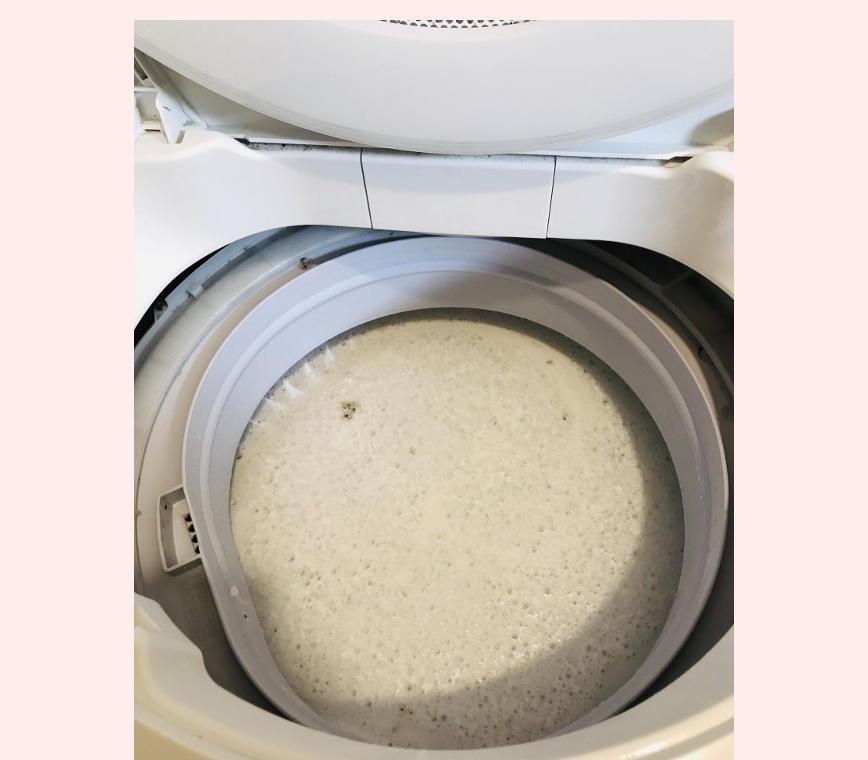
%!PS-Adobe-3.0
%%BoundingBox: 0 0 868 760
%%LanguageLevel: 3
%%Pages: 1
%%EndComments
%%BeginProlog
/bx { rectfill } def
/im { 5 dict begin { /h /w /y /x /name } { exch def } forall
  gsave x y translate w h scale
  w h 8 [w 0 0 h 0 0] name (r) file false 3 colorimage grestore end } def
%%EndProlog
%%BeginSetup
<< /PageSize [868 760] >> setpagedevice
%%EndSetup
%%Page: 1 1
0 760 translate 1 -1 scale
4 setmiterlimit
1 0.929 0.929 setrgbcolor
0 0 868 760 bx
(image0.raw) 134 20 600 740 im
showpage
%%EOF
